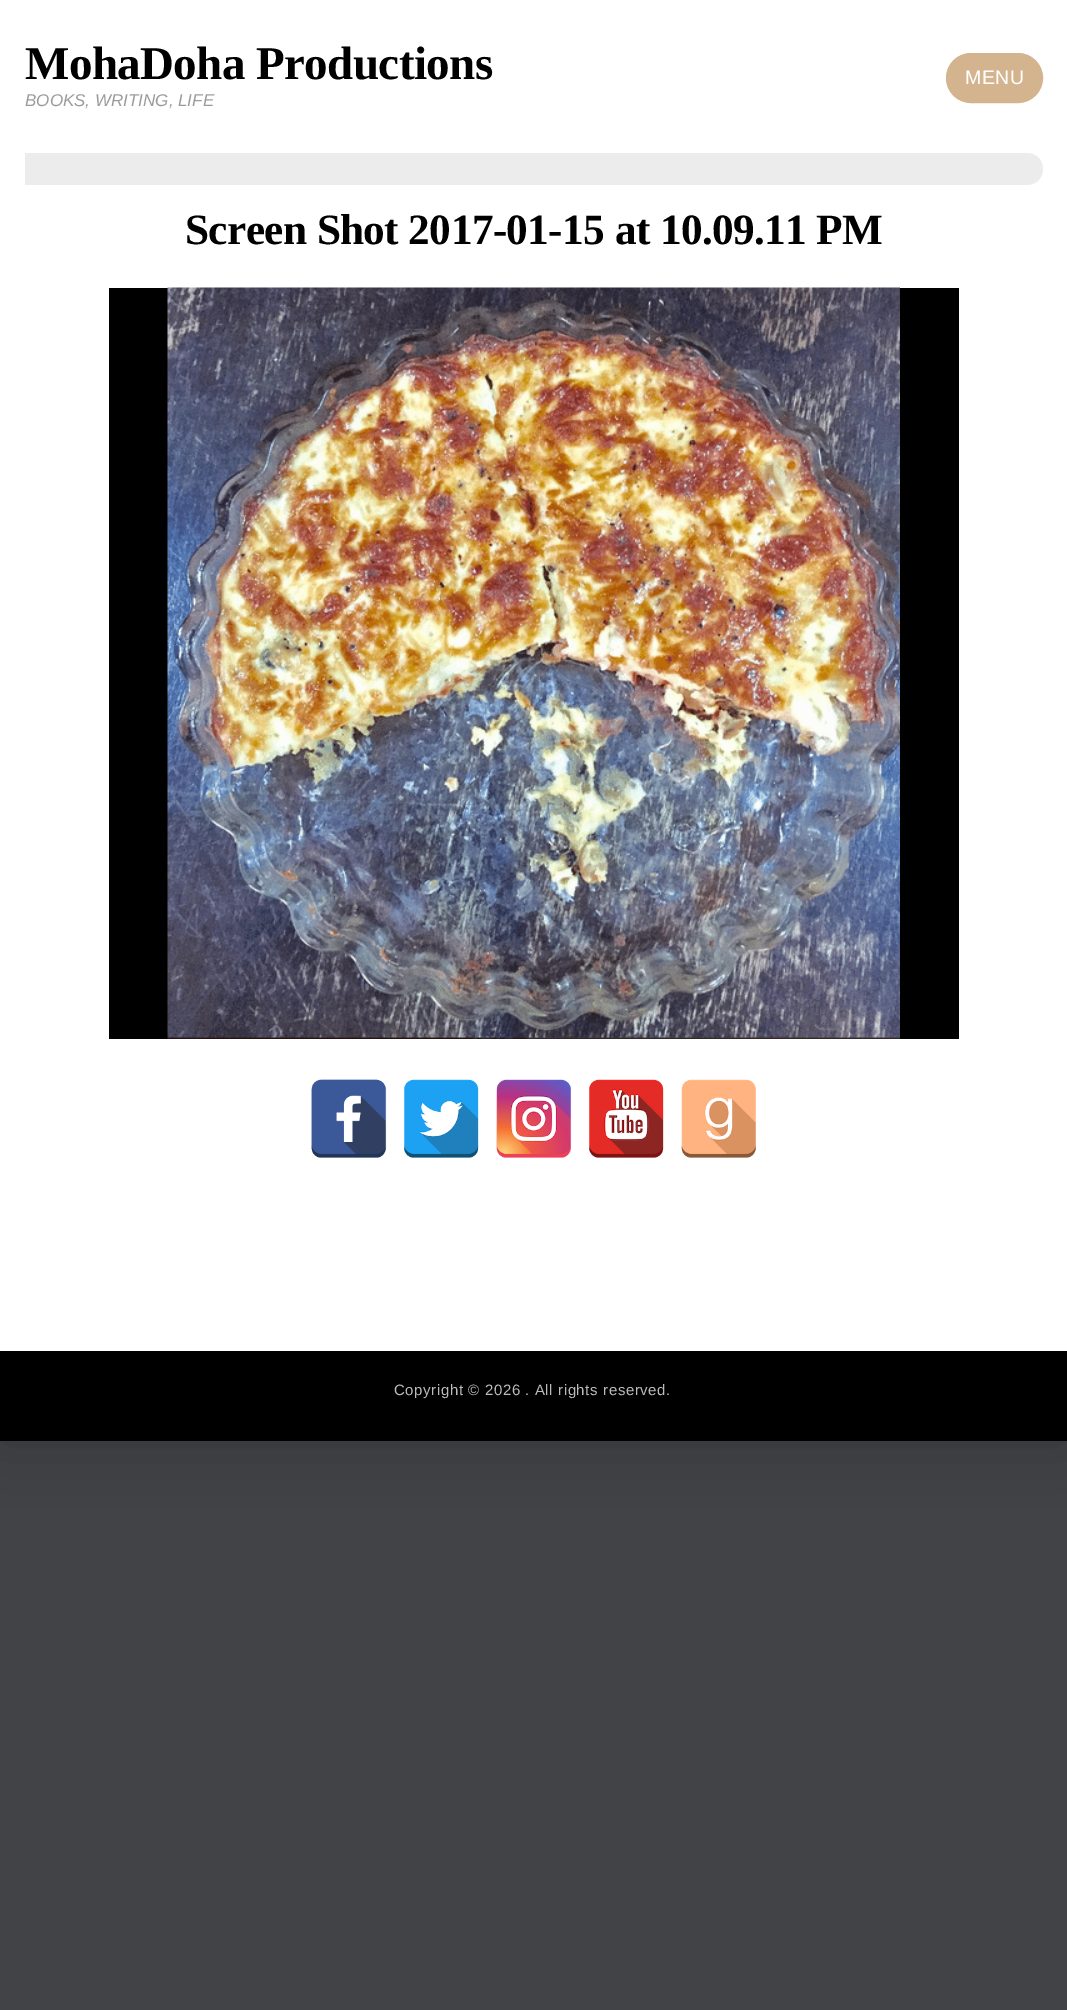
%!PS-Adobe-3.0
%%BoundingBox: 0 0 1067 2010
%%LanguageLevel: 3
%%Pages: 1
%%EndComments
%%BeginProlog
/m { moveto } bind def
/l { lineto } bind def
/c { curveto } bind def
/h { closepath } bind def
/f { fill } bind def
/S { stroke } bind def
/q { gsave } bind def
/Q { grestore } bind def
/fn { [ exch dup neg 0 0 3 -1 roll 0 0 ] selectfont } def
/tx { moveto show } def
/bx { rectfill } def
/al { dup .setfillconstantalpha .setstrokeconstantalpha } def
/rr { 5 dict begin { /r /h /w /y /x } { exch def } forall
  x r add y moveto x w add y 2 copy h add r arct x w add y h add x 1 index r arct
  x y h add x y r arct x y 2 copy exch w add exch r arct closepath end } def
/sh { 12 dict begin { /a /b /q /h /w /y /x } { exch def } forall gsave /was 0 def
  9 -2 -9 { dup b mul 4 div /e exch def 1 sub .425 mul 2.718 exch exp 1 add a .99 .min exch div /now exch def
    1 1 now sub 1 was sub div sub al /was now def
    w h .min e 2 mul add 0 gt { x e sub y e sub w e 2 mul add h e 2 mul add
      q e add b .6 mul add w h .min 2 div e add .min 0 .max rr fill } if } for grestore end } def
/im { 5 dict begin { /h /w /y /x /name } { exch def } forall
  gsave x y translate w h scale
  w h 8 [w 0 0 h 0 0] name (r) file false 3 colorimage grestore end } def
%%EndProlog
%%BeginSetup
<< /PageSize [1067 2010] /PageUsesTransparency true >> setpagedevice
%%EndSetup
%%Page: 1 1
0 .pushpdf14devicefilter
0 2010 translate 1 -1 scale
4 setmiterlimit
0.255 0.263 0.278 setrgbcolor
0 0 1067 2010 bx
0 setgray
0 0 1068 1441 0 31 0.2 sh
1 setgray
0 0 1067 1351 bx
/LiberationSerif-Bold 47 fn
0 setgray
25 79 m -0.6 0 (MohaDoha Productions) ashow
/LiberationSans-Italic 17 fn
0.608 setgray
(BOOKS, WRITING, LIFE) 25 106 tx
0.831 0.706 0.561 setrgbcolor
946.5 53.5 96 49 24.5 rr q f Q
S
/LiberationSans-Regular 19.5 fn
1 setgray
965 84 m 0.6 0 (MENU) ashow
0.925 setgray
25 153 m 1027 153 l 1036 153 1043 160 1043 169 c 1043 178 1036 185 1027 185 c 25 185 l h f
/LiberationSerif-Bold 43.25 fn
0 setgray
185 244 m -0.6 0 (Screen Shot 2017-01-15 at 10.09.11 PM) ashow
109 288 850 751 bx
(image0.raw) 167 287 733 752 im
(image1.raw) 311 1079 76 79 im
(image2.raw) 404 1079 75 79 im
(image3.raw) 496 1079 76 79 im
(image4.raw) 589 1079 75 79 im
(image5.raw) 681 1079 75 79 im
0 1351 1067 90 bx
/LiberationSans-Regular 15 fn
0.733 setgray
394 1395 m 0.6 0 (Copyright © 2026 . All rights reserved.) ashow
.poppdf14devicefilter showpage
%%EOF
